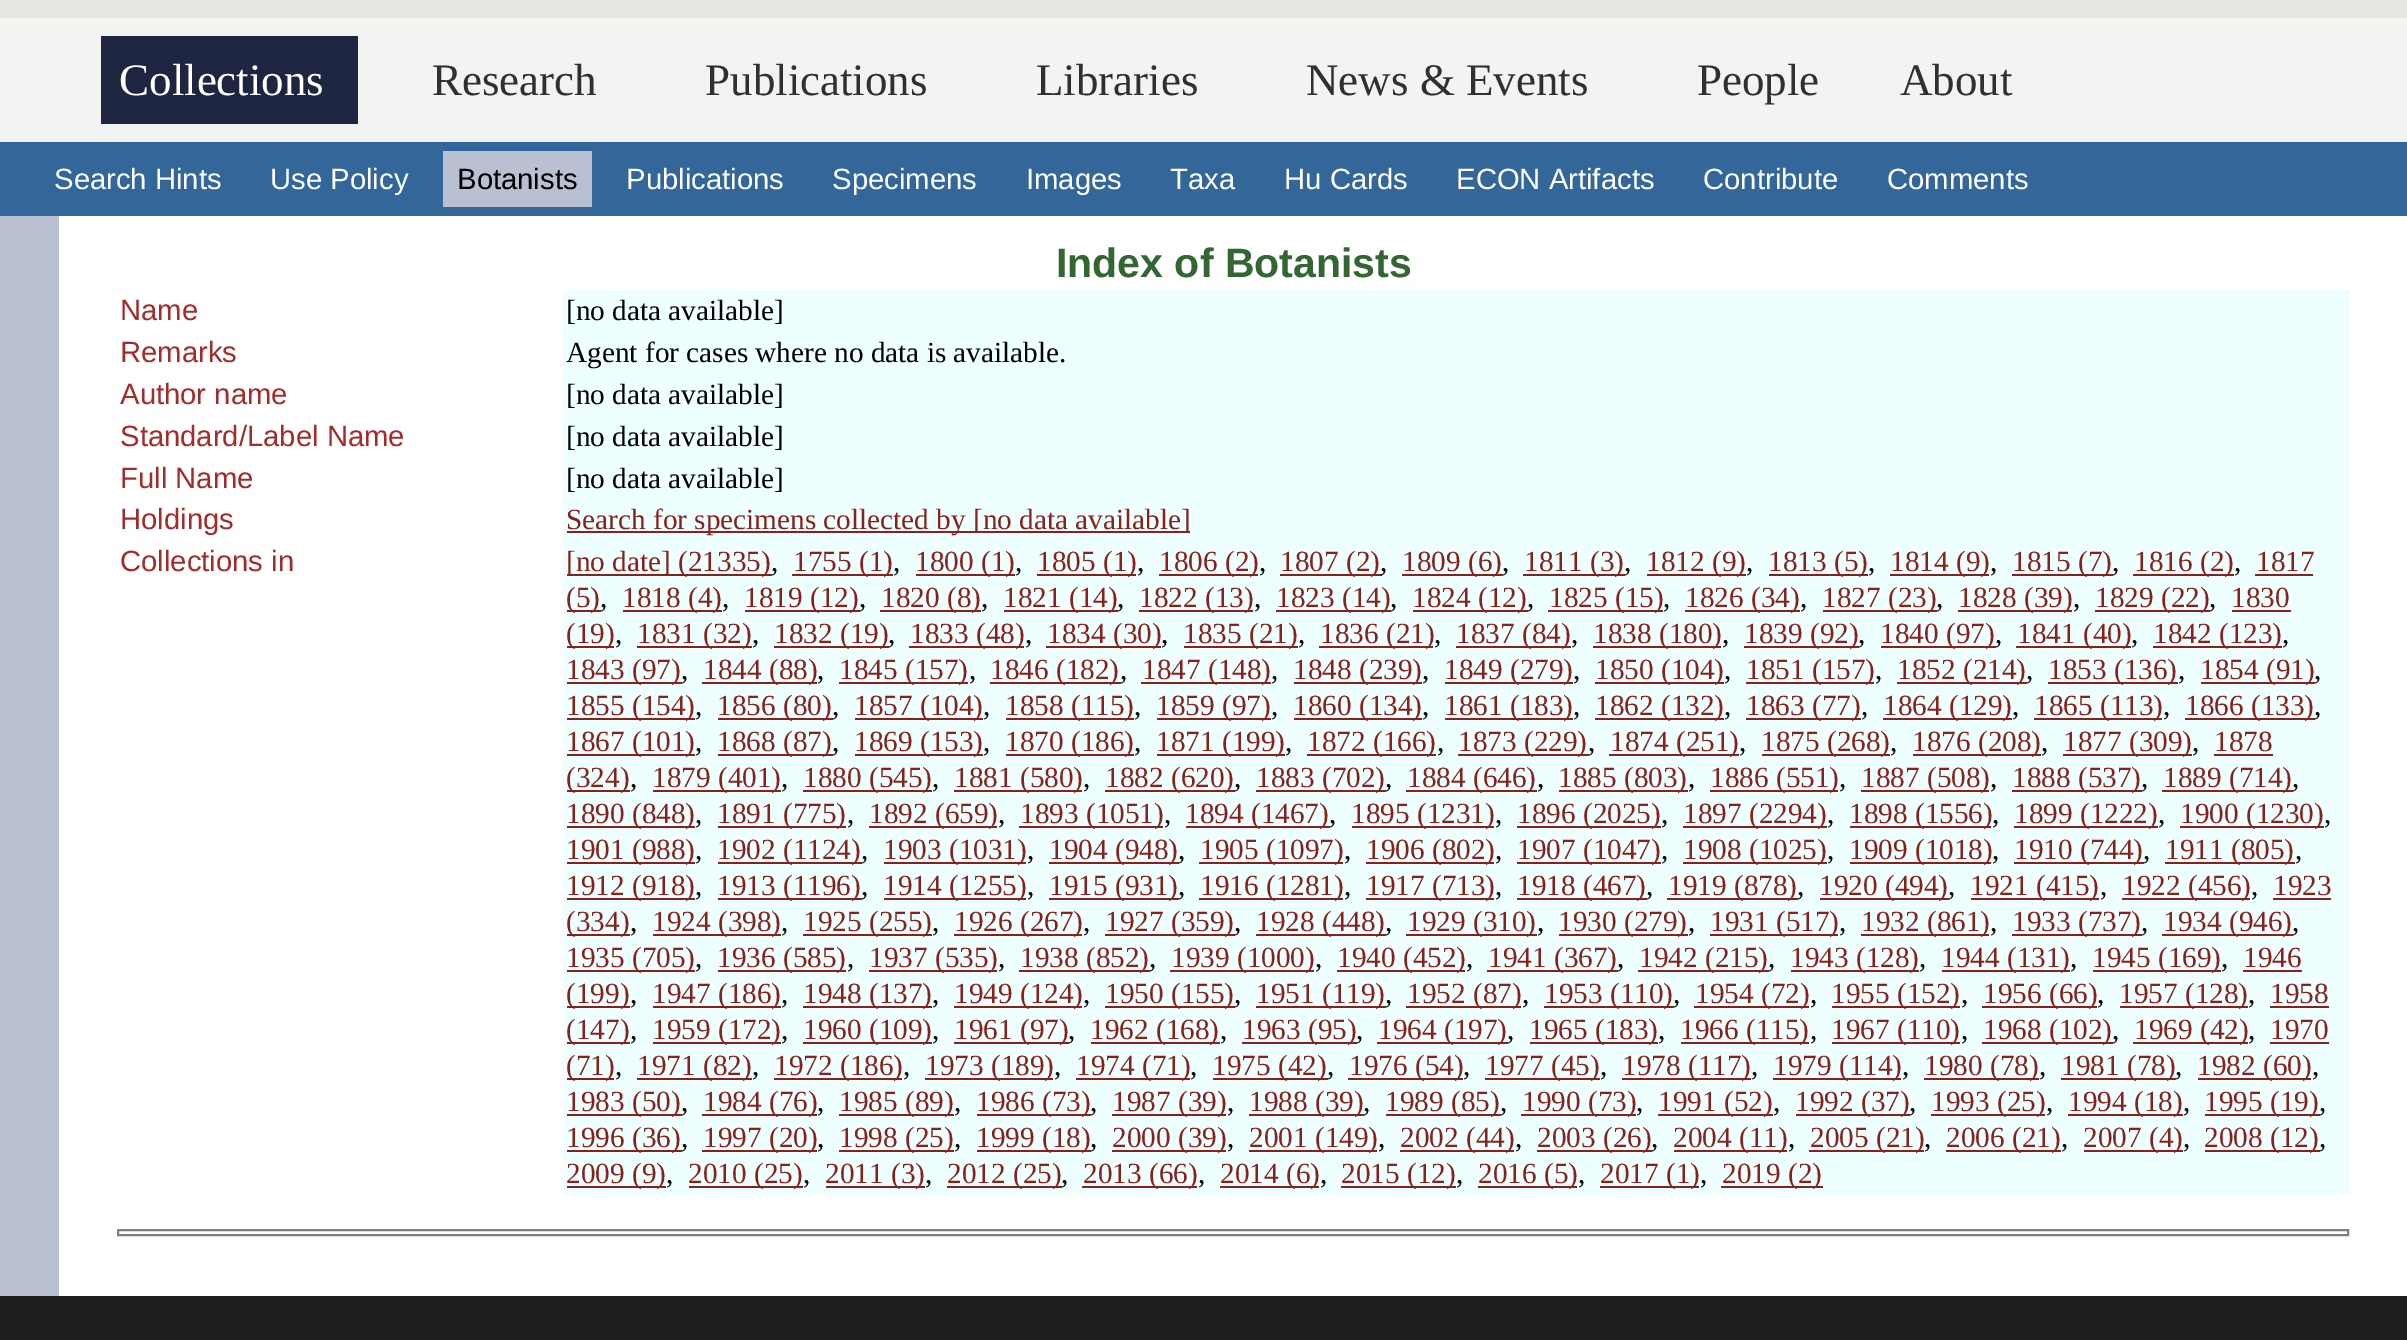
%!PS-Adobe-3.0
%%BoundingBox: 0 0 2407 1340
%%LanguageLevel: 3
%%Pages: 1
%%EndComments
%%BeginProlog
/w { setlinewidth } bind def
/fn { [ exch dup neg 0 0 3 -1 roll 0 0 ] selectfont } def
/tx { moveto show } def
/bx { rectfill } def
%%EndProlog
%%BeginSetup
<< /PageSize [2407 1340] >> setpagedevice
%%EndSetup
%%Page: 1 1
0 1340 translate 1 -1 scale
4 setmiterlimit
0.902 0.902 0.89 setrgbcolor
0 0 2407 1340 bx
0.953 0.953 0.945 setrgbcolor
0 18 2407 124 bx
0.118 0.145 0.251 setrgbcolor
101 36 257 88 bx
/LiberationSerif-Regular 45 fn
1 setgray
(Collections) 119 95 tx
0.188 setgray
(Research) 432 95 tx
(Publications) 705 95 tx
(Libraries) 1036 95 tx
(News & Events) 1306 95 tx
(People) 1697 95 tx
(About) 1900 95 tx
0.2 0.4 0.6 setrgbcolor
0 142 2407 74 bx
/LiberationSans-Regular 29.25 fn
1 setgray
(Search Hints) 54 189 tx
(Use Policy) 270 189 tx
0.722 0.753 0.824 setrgbcolor
443 151 149 56 bx
0 setgray
(Botanists) 457 189 tx
1 setgray
(Publications) 626 189 tx
(Specimens) 832 189 tx
(Images) 1026 189 tx
(Taxa) 1170 189 tx
(Hu Cards) 1284 189 tx
(ECON Artifacts) 1456 189 tx
(Contribute) 1703 189 tx
(Comments) 1887 189 tx
0.722 0.753 0.824 setrgbcolor
0 216 59 1080 bx
1 setgray
59 216 2348 1080 bx
/LiberationSans-Bold 41 fn
0.2 0.4 0.2 setrgbcolor
(Index of Botanists) 1056 277 tx
/LiberationSans-Regular 29.25 fn
0.647 0.165 0.165 setrgbcolor
(Name) 120 320 tx
0.933 1 1 setrgbcolor
563 290 1786 905 bx
/LiberationSerif-Regular 29.25 fn
0 setgray
([no data available]) 566 320 tx
/LiberationSans-Regular 29.25 fn
0.647 0.165 0.165 setrgbcolor
(Remarks) 120 362 tx
/LiberationSerif-Regular 29.25 fn
0 setgray
(Agent for cases where no data is available.) 566 362 tx
/LiberationSans-Regular 29.25 fn
0.647 0.165 0.165 setrgbcolor
(Author name) 120 404 tx
/LiberationSerif-Regular 29.25 fn
0 setgray
([no data available]) 566 404 tx
/LiberationSans-Regular 29.25 fn
0.647 0.165 0.165 setrgbcolor
(Standard/Label Name) 120 446 tx
/LiberationSerif-Regular 29.25 fn
0 setgray
([no data available]) 566 446 tx
/LiberationSans-Regular 29.25 fn
0.647 0.165 0.165 setrgbcolor
(Full Name) 120 488 tx
/LiberationSerif-Regular 29.25 fn
0 setgray
([no data available]) 566 488 tx
/LiberationSans-Regular 29.25 fn
0.647 0.165 0.165 setrgbcolor
(Holdings) 120 529 tx
0.537 0.125 0.106 setrgbcolor
567 531 623 2 bx
/LiberationSerif-Regular 29.25 fn
(Search for specimens collected by [no data available]) 566 529 tx
/LiberationSans-Regular 29.25 fn
0.647 0.165 0.165 setrgbcolor
(Collections in) 120 571 tx
0.537 0.125 0.106 setrgbcolor
567 574 205 2 bx
/LiberationSerif-Regular 29.25 fn
([no date] \(21335\)) 566 571 tx
0 setgray
(,) 771 571 tx
0.537 0.125 0.106 setrgbcolor
792 574 101 2 bx
(1755 \(1\)) 793 571 tx
0 setgray
(,) 893 571 tx
0.537 0.125 0.106 setrgbcolor
916 574 99 2 bx
(1800 \(1\)) 915 571 tx
0 setgray
(,) 1015 571 tx
0.537 0.125 0.106 setrgbcolor
1037 574 99 2 bx
(1805 \(1\)) 1037 571 tx
0 setgray
(,) 1137 571 tx
0.537 0.125 0.106 setrgbcolor
1159 574 99 2 bx
(1806 \(2\)) 1159 571 tx
0 setgray
(,) 1259 571 tx
0.537 0.125 0.106 setrgbcolor
1280 574 102 2 bx
(1807 \(2\)) 1280 571 tx
0 setgray
(,) 1380 571 tx
0.537 0.125 0.106 setrgbcolor
1402 574 101 2 bx
(1809 \(6\)) 1402 571 tx
0 setgray
(,) 1502 571 tx
0.537 0.125 0.106 setrgbcolor
1523 574 102 2 bx
(1811 \(3\)) 1524 571 tx
0 setgray
(,) 1624 571 tx
0.537 0.125 0.106 setrgbcolor
1647 574 99 2 bx
(1812 \(9\)) 1646 571 tx
0 setgray
(,) 1746 571 tx
0.537 0.125 0.106 setrgbcolor
1769 574 99 2 bx
(1813 \(5\)) 1768 571 tx
0 setgray
(,) 1868 571 tx
0.537 0.125 0.106 setrgbcolor
1890 574 99 2 bx
(1814 \(9\)) 1890 571 tx
0 setgray
(,) 1990 571 tx
0.537 0.125 0.106 setrgbcolor
2012 574 101 2 bx
(1815 \(7\)) 2012 571 tx
0 setgray
(,) 2112 571 tx
0.537 0.125 0.106 setrgbcolor
2133 574 101 2 bx
(1816 \(2\)) 2134 571 tx
0 setgray
(,) 2234 571 tx
0.537 0.125 0.106 setrgbcolor
(1817) 2256 571 tx
2255 574 58 2 bx
567 610 34 2 bx
(\(5\)) 566 607 tx
0 setgray
(,) 600 607 tx
0.537 0.125 0.106 setrgbcolor
623 610 99 2 bx
(1818 \(4\)) 622 607 tx
0 setgray
(,) 722 607 tx
0.537 0.125 0.106 setrgbcolor
745 610 115 2 bx
(1819 \(12\)) 744 607 tx
0 setgray
(,) 859 607 tx
0.537 0.125 0.106 setrgbcolor
880 610 101 2 bx
(1820 \(8\)) 881 607 tx
0 setgray
(,) 981 607 tx
0.537 0.125 0.106 setrgbcolor
1004 610 114 2 bx
(1821 \(14\)) 1003 607 tx
0 setgray
(,) 1117 607 tx
0.537 0.125 0.106 setrgbcolor
1139 610 114 2 bx
(1822 \(13\)) 1139 607 tx
0 setgray
(,) 1254 607 tx
0.537 0.125 0.106 setrgbcolor
1276 610 115 2 bx
(1823 \(14\)) 1276 607 tx
0 setgray
(,) 1390 607 tx
0.537 0.125 0.106 setrgbcolor
1413 610 115 2 bx
(1824 \(12\)) 1412 607 tx
0 setgray
(,) 1527 607 tx
0.537 0.125 0.106 setrgbcolor
1548 610 115 2 bx
(1825 \(15\)) 1549 607 tx
0 setgray
(,) 1663 607 tx
0.537 0.125 0.106 setrgbcolor
1685 610 115 2 bx
(1826 \(34\)) 1685 607 tx
0 setgray
(,) 1800 607 tx
0.537 0.125 0.106 setrgbcolor
1823 610 114 2 bx
(1827 \(23\)) 1822 607 tx
0 setgray
(,) 1936 607 tx
0.537 0.125 0.106 setrgbcolor
1958 610 114 2 bx
(1828 \(39\)) 1958 607 tx
0 setgray
(,) 2073 607 tx
0.537 0.125 0.106 setrgbcolor
2095 610 115 2 bx
(1829 \(22\)) 2095 607 tx
0 setgray
(,) 2209 607 tx
0.537 0.125 0.106 setrgbcolor
(1830) 2231 607 tx
2232 610 59 2 bx
567 646 47 2 bx
(\(19\)) 566 643 tx
0 setgray
(,) 615 643 tx
0.537 0.125 0.106 setrgbcolor
637 646 115 2 bx
(1831 \(32\)) 637 643 tx
0 setgray
(,) 752 643 tx
0.537 0.125 0.106 setrgbcolor
774 646 115 2 bx
(1832 \(19\)) 774 643 tx
0 setgray
(,) 888 643 tx
0.537 0.125 0.106 setrgbcolor
909 646 115 2 bx
(1833 \(48\)) 910 643 tx
0 setgray
(,) 1025 643 tx
0.537 0.125 0.106 setrgbcolor
1046 646 115 2 bx
(1834 \(30\)) 1047 643 tx
0 setgray
(,) 1161 643 tx
0.537 0.125 0.106 setrgbcolor
1184 646 114 2 bx
(1835 \(21\)) 1183 643 tx
0 setgray
(,) 1298 643 tx
0.537 0.125 0.106 setrgbcolor
1319 646 114 2 bx
(1836 \(21\)) 1320 643 tx
0 setgray
(,) 1434 643 tx
0.537 0.125 0.106 setrgbcolor
1456 646 115 2 bx
(1837 \(84\)) 1456 643 tx
0 setgray
(,) 1571 643 tx
0.537 0.125 0.106 setrgbcolor
1593 646 128 2 bx
(1838 \(180\)) 1593 643 tx
0 setgray
(,) 1722 643 tx
0.537 0.125 0.106 setrgbcolor
1744 646 115 2 bx
(1839 \(92\)) 1744 643 tx
0 setgray
(,) 1858 643 tx
0.537 0.125 0.106 setrgbcolor
1881 646 115 2 bx
(1840 \(97\)) 1880 643 tx
0 setgray
(,) 1995 643 tx
0.537 0.125 0.106 setrgbcolor
2016 646 115 2 bx
(1841 \(40\)) 2017 643 tx
0 setgray
(,) 2131 643 tx
0.537 0.125 0.106 setrgbcolor
2153 646 129 2 bx
(1842 \(123\)) 2153 643 tx
0 setgray
(,) 2282 643 tx
0.537 0.125 0.106 setrgbcolor
567 682 115 2 bx
(1843 \(97\)) 566 679 tx
0 setgray
(,) 681 679 tx
0.537 0.125 0.106 setrgbcolor
702 682 115 2 bx
(1844 \(88\)) 703 679 tx
0 setgray
(,) 817 679 tx
0.537 0.125 0.106 setrgbcolor
839 682 129 2 bx
(1845 \(157\)) 839 679 tx
0 setgray
(,) 969 679 tx
0.537 0.125 0.106 setrgbcolor
990 682 131 2 bx
(1846 \(182\)) 990 679 tx
0 setgray
(,) 1120 679 tx
0.537 0.125 0.106 setrgbcolor
1141 682 130 2 bx
(1847 \(148\)) 1142 679 tx
0 setgray
(,) 1271 679 tx
0.537 0.125 0.106 setrgbcolor
1294 682 128 2 bx
(1848 \(239\)) 1293 679 tx
0 setgray
(,) 1422 679 tx
0.537 0.125 0.106 setrgbcolor
1445 682 128 2 bx
(1849 \(279\)) 1444 679 tx
0 setgray
(,) 1573 679 tx
0.537 0.125 0.106 setrgbcolor
1595 682 129 2 bx
(1850 \(104\)) 1595 679 tx
0 setgray
(,) 1724 679 tx
0.537 0.125 0.106 setrgbcolor
1746 682 128 2 bx
(1851 \(157\)) 1746 679 tx
0 setgray
(,) 1875 679 tx
0.537 0.125 0.106 setrgbcolor
1897 682 130 2 bx
(1852 \(214\)) 1897 679 tx
0 setgray
(,) 2026 679 tx
0.537 0.125 0.106 setrgbcolor
2048 682 130 2 bx
(1853 \(136\)) 2048 679 tx
0 setgray
(,) 2178 679 tx
0.537 0.125 0.106 setrgbcolor
2201 682 114 2 bx
(1854 \(91\)) 2200 679 tx
0 setgray
(,) 2314 679 tx
0.537 0.125 0.106 setrgbcolor
567 718 128 2 bx
(1855 \(154\)) 566 715 tx
0 setgray
(,) 695 715 tx
0.537 0.125 0.106 setrgbcolor
718 718 115 2 bx
(1856 \(80\)) 717 715 tx
0 setgray
(,) 832 715 tx
0.537 0.125 0.106 setrgbcolor
855 718 128 2 bx
(1857 \(104\)) 854 715 tx
0 setgray
(,) 983 715 tx
0.537 0.125 0.106 setrgbcolor
1006 718 128 2 bx
(1858 \(115\)) 1005 715 tx
0 setgray
(,) 1134 715 tx
0.537 0.125 0.106 setrgbcolor
1157 718 114 2 bx
(1859 \(97\)) 1156 715 tx
0 setgray
(,) 1271 715 tx
0.537 0.125 0.106 setrgbcolor
1294 718 128 2 bx
(1860 \(134\)) 1293 715 tx
0 setgray
(,) 1422 715 tx
0.537 0.125 0.106 setrgbcolor
1445 718 128 2 bx
(1861 \(183\)) 1444 715 tx
0 setgray
(,) 1573 715 tx
0.537 0.125 0.106 setrgbcolor
1595 718 129 2 bx
(1862 \(132\)) 1595 715 tx
0 setgray
(,) 1724 715 tx
0.537 0.125 0.106 setrgbcolor
1746 718 115 2 bx
(1863 \(77\)) 1746 715 tx
0 setgray
(,) 1861 715 tx
0.537 0.125 0.106 setrgbcolor
1883 718 129 2 bx
(1864 \(129\)) 1883 715 tx
0 setgray
(,) 2012 715 tx
0.537 0.125 0.106 setrgbcolor
2034 718 128 2 bx
(1865 \(113\)) 2034 715 tx
0 setgray
(,) 2163 715 tx
0.537 0.125 0.106 setrgbcolor
2185 718 130 2 bx
(1866 \(133\)) 2185 715 tx
0 setgray
(,) 2314 715 tx
0.537 0.125 0.106 setrgbcolor
567 754 128 2 bx
(1867 \(101\)) 566 751 tx
0 setgray
(,) 695 751 tx
0.537 0.125 0.106 setrgbcolor
718 754 115 2 bx
(1868 \(87\)) 717 751 tx
0 setgray
(,) 832 751 tx
0.537 0.125 0.106 setrgbcolor
855 754 128 2 bx
(1869 \(153\)) 854 751 tx
0 setgray
(,) 983 751 tx
0.537 0.125 0.106 setrgbcolor
1006 754 128 2 bx
(1870 \(186\)) 1005 751 tx
0 setgray
(,) 1134 751 tx
0.537 0.125 0.106 setrgbcolor
1157 754 128 2 bx
(1871 \(199\)) 1156 751 tx
0 setgray
(,) 1285 751 tx
0.537 0.125 0.106 setrgbcolor
1307 754 129 2 bx
(1872 \(166\)) 1307 751 tx
0 setgray
(,) 1437 751 tx
0.537 0.125 0.106 setrgbcolor
1458 754 131 2 bx
(1873 \(229\)) 1458 751 tx
0 setgray
(,) 1588 751 tx
0.537 0.125 0.106 setrgbcolor
1609 754 130 2 bx
(1874 \(251\)) 1610 751 tx
0 setgray
(,) 1739 751 tx
0.537 0.125 0.106 setrgbcolor
1762 754 128 2 bx
(1875 \(268\)) 1761 751 tx
0 setgray
(,) 1890 751 tx
0.537 0.125 0.106 setrgbcolor
1913 754 128 2 bx
(1876 \(208\)) 1912 751 tx
0 setgray
(,) 2041 751 tx
0.537 0.125 0.106 setrgbcolor
2063 754 129 2 bx
(1877 \(309\)) 2063 751 tx
0 setgray
(,) 2192 751 tx
0.537 0.125 0.106 setrgbcolor
(1878) 2214 751 tx
2214 754 59 2 bx
567 790 63 2 bx
(\(324\)) 566 787 tx
0 setgray
(,) 630 787 tx
0.537 0.125 0.106 setrgbcolor
653 790 128 2 bx
(1879 \(401\)) 652 787 tx
0 setgray
(,) 781 787 tx
0.537 0.125 0.106 setrgbcolor
803 790 129 2 bx
(1880 \(545\)) 803 787 tx
0 setgray
(,) 932 787 tx
0.537 0.125 0.106 setrgbcolor
954 790 128 2 bx
(1881 \(580\)) 954 787 tx
0 setgray
(,) 1083 787 tx
0.537 0.125 0.106 setrgbcolor
1105 790 130 2 bx
(1882 \(620\)) 1105 787 tx
0 setgray
(,) 1234 787 tx
0.537 0.125 0.106 setrgbcolor
1256 790 130 2 bx
(1883 \(702\)) 1256 787 tx
0 setgray
(,) 1385 787 tx
0.537 0.125 0.106 setrgbcolor
1406 790 131 2 bx
(1884 \(646\)) 1407 787 tx
0 setgray
(,) 1537 787 tx
0.537 0.125 0.106 setrgbcolor
1559 790 129 2 bx
(1885 \(803\)) 1558 787 tx
0 setgray
(,) 1688 787 tx
0.537 0.125 0.106 setrgbcolor
1710 790 128 2 bx
(1886 \(551\)) 1710 787 tx
0 setgray
(,) 1839 787 tx
0.537 0.125 0.106 setrgbcolor
1861 790 128 2 bx
(1887 \(508\)) 1861 787 tx
0 setgray
(,) 1990 787 tx
0.537 0.125 0.106 setrgbcolor
2012 790 130 2 bx
(1888 \(537\)) 2012 787 tx
0 setgray
(,) 2141 787 tx
0.537 0.125 0.106 setrgbcolor
2162 790 131 2 bx
(1889 \(714\)) 2163 787 tx
0 setgray
(,) 2292 787 tx
0.537 0.125 0.106 setrgbcolor
567 826 128 2 bx
(1890 \(848\)) 566 823 tx
0 setgray
(,) 695 823 tx
0.537 0.125 0.106 setrgbcolor
718 826 128 2 bx
(1891 \(775\)) 717 823 tx
0 setgray
(,) 847 823 tx
0.537 0.125 0.106 setrgbcolor
869 826 128 2 bx
(1892 \(659\)) 869 823 tx
0 setgray
(,) 998 823 tx
0.537 0.125 0.106 setrgbcolor
1019 826 144 2 bx
(1893 \(1051\)) 1020 823 tx
0 setgray
(,) 1164 823 tx
0.537 0.125 0.106 setrgbcolor
1186 826 144 2 bx
(1894 \(1467\)) 1185 823 tx
0 setgray
(,) 1329 823 tx
0.537 0.125 0.106 setrgbcolor
1352 826 142 2 bx
(1895 \(1231\)) 1351 823 tx
0 setgray
(,) 1495 823 tx
0.537 0.125 0.106 setrgbcolor
1517 826 144 2 bx
(1896 \(2025\)) 1517 823 tx
0 setgray
(,) 1661 823 tx
0.537 0.125 0.106 setrgbcolor
1683 826 144 2 bx
(1897 \(2294\)) 1683 823 tx
0 setgray
(,) 1827 823 tx
0.537 0.125 0.106 setrgbcolor
1850 826 141 2 bx
(1898 \(1556\)) 1849 823 tx
0 setgray
(,) 1992 823 tx
0.537 0.125 0.106 setrgbcolor
2014 826 144 2 bx
(1899 \(1222\)) 2014 823 tx
0 setgray
(,) 2158 823 tx
0.537 0.125 0.106 setrgbcolor
2180 826 144 2 bx
(1900 \(1230\)) 2180 823 tx
0 setgray
(,) 2324 823 tx
0.537 0.125 0.106 setrgbcolor
567 862 128 2 bx
(1901 \(988\)) 566 859 tx
0 setgray
(,) 695 859 tx
0.537 0.125 0.106 setrgbcolor
718 862 144 2 bx
(1902 \(1124\)) 717 859 tx
0 setgray
(,) 861 859 tx
0.537 0.125 0.106 setrgbcolor
884 862 142 2 bx
(1903 \(1031\)) 883 859 tx
0 setgray
(,) 1027 859 tx
0.537 0.125 0.106 setrgbcolor
1049 862 130 2 bx
(1904 \(948\)) 1049 859 tx
0 setgray
(,) 1178 859 tx
0.537 0.125 0.106 setrgbcolor
1199 862 144 2 bx
(1905 \(1097\)) 1200 859 tx
0 setgray
(,) 1344 859 tx
0.537 0.125 0.106 setrgbcolor
1366 862 128 2 bx
(1906 \(802\)) 1366 859 tx
0 setgray
(,) 1495 859 tx
0.537 0.125 0.106 setrgbcolor
1517 862 144 2 bx
(1907 \(1047\)) 1517 859 tx
0 setgray
(,) 1661 859 tx
0.537 0.125 0.106 setrgbcolor
1683 862 144 2 bx
(1908 \(1025\)) 1683 859 tx
0 setgray
(,) 1827 859 tx
0.537 0.125 0.106 setrgbcolor
1850 862 141 2 bx
(1909 \(1018\)) 1849 859 tx
0 setgray
(,) 1992 859 tx
0.537 0.125 0.106 setrgbcolor
2014 862 130 2 bx
(1910 \(744\)) 2014 859 tx
0 setgray
(,) 2143 859 tx
0.537 0.125 0.106 setrgbcolor
2165 862 130 2 bx
(1911 \(805\)) 2165 859 tx
0 setgray
(,) 2295 859 tx
0.537 0.125 0.106 setrgbcolor
567 898 128 2 bx
(1912 \(918\)) 566 895 tx
0 setgray
(,) 695 895 tx
0.537 0.125 0.106 setrgbcolor
718 898 144 2 bx
(1913 \(1196\)) 717 895 tx
0 setgray
(,) 861 895 tx
0.537 0.125 0.106 setrgbcolor
884 898 142 2 bx
(1914 \(1255\)) 883 895 tx
0 setgray
(,) 1027 895 tx
0.537 0.125 0.106 setrgbcolor
1049 898 130 2 bx
(1915 \(931\)) 1049 895 tx
0 setgray
(,) 1178 895 tx
0.537 0.125 0.106 setrgbcolor
1199 898 144 2 bx
(1916 \(1281\)) 1200 895 tx
0 setgray
(,) 1344 895 tx
0.537 0.125 0.106 setrgbcolor
1366 898 128 2 bx
(1917 \(713\)) 1366 895 tx
0 setgray
(,) 1495 895 tx
0.537 0.125 0.106 setrgbcolor
1517 898 130 2 bx
(1918 \(467\)) 1517 895 tx
0 setgray
(,) 1646 895 tx
0.537 0.125 0.106 setrgbcolor
1667 898 131 2 bx
(1919 \(878\)) 1668 895 tx
0 setgray
(,) 1797 895 tx
0.537 0.125 0.106 setrgbcolor
1820 898 129 2 bx
(1920 \(494\)) 1819 895 tx
0 setgray
(,) 1948 895 tx
0.537 0.125 0.106 setrgbcolor
1971 898 128 2 bx
(1921 \(415\)) 1970 895 tx
0 setgray
(,) 2100 895 tx
0.537 0.125 0.106 setrgbcolor
2122 898 128 2 bx
(1922 \(456\)) 2122 895 tx
0 setgray
(,) 2251 895 tx
0.537 0.125 0.106 setrgbcolor
(1923) 2273 895 tx
2273 898 58 2 bx
567 934 63 2 bx
(\(334\)) 566 931 tx
0 setgray
(,) 630 931 tx
0.537 0.125 0.106 setrgbcolor
653 934 128 2 bx
(1924 \(398\)) 652 931 tx
0 setgray
(,) 781 931 tx
0.537 0.125 0.106 setrgbcolor
803 934 129 2 bx
(1925 \(255\)) 803 931 tx
0 setgray
(,) 932 931 tx
0.537 0.125 0.106 setrgbcolor
954 934 128 2 bx
(1926 \(267\)) 954 931 tx
0 setgray
(,) 1083 931 tx
0.537 0.125 0.106 setrgbcolor
1105 934 130 2 bx
(1927 \(359\)) 1105 931 tx
0 setgray
(,) 1234 931 tx
0.537 0.125 0.106 setrgbcolor
1256 934 130 2 bx
(1928 \(448\)) 1256 931 tx
0 setgray
(,) 1385 931 tx
0.537 0.125 0.106 setrgbcolor
1406 934 131 2 bx
(1929 \(310\)) 1407 931 tx
0 setgray
(,) 1537 931 tx
0.537 0.125 0.106 setrgbcolor
1559 934 129 2 bx
(1930 \(279\)) 1558 931 tx
0 setgray
(,) 1688 931 tx
0.537 0.125 0.106 setrgbcolor
1710 934 128 2 bx
(1931 \(517\)) 1710 931 tx
0 setgray
(,) 1839 931 tx
0.537 0.125 0.106 setrgbcolor
1861 934 128 2 bx
(1932 \(861\)) 1861 931 tx
0 setgray
(,) 1990 931 tx
0.537 0.125 0.106 setrgbcolor
2012 934 130 2 bx
(1933 \(737\)) 2012 931 tx
0 setgray
(,) 2141 931 tx
0.537 0.125 0.106 setrgbcolor
2162 934 131 2 bx
(1934 \(946\)) 2163 931 tx
0 setgray
(,) 2292 931 tx
0.537 0.125 0.106 setrgbcolor
567 970 128 2 bx
(1935 \(705\)) 566 967 tx
0 setgray
(,) 695 967 tx
0.537 0.125 0.106 setrgbcolor
718 970 128 2 bx
(1936 \(585\)) 717 967 tx
0 setgray
(,) 847 967 tx
0.537 0.125 0.106 setrgbcolor
869 970 128 2 bx
(1937 \(535\)) 869 967 tx
0 setgray
(,) 998 967 tx
0.537 0.125 0.106 setrgbcolor
1019 970 131 2 bx
(1938 \(852\)) 1020 967 tx
0 setgray
(,) 1149 967 tx
0.537 0.125 0.106 setrgbcolor
1170 970 144 2 bx
(1939 \(1000\)) 1171 967 tx
0 setgray
(,) 1315 967 tx
0.537 0.125 0.106 setrgbcolor
1337 970 128 2 bx
(1940 \(452\)) 1337 967 tx
0 setgray
(,) 1466 967 tx
0.537 0.125 0.106 setrgbcolor
1487 970 131 2 bx
(1941 \(367\)) 1488 967 tx
0 setgray
(,) 1617 967 tx
0.537 0.125 0.106 setrgbcolor
1638 970 131 2 bx
(1942 \(215\)) 1639 967 tx
0 setgray
(,) 1768 967 tx
0.537 0.125 0.106 setrgbcolor
1791 970 128 2 bx
(1943 \(128\)) 1790 967 tx
0 setgray
(,) 1919 967 tx
0.537 0.125 0.106 setrgbcolor
1942 970 128 2 bx
(1944 \(131\)) 1941 967 tx
0 setgray
(,) 2070 967 tx
0.537 0.125 0.106 setrgbcolor
2093 970 128 2 bx
(1945 \(169\)) 2092 967 tx
0 setgray
(,) 2221 967 tx
0.537 0.125 0.106 setrgbcolor
(1946) 2243 967 tx
2243 970 59 2 bx
567 1006 63 2 bx
(\(199\)) 566 1003 tx
0 setgray
(,) 630 1003 tx
0.537 0.125 0.106 setrgbcolor
653 1006 128 2 bx
(1947 \(186\)) 652 1003 tx
0 setgray
(,) 781 1003 tx
0.537 0.125 0.106 setrgbcolor
803 1006 129 2 bx
(1948 \(137\)) 803 1003 tx
0 setgray
(,) 932 1003 tx
0.537 0.125 0.106 setrgbcolor
954 1006 128 2 bx
(1949 \(124\)) 954 1003 tx
0 setgray
(,) 1083 1003 tx
0.537 0.125 0.106 setrgbcolor
1105 1006 130 2 bx
(1950 \(155\)) 1105 1003 tx
0 setgray
(,) 1234 1003 tx
0.537 0.125 0.106 setrgbcolor
1256 1006 130 2 bx
(1951 \(119\)) 1256 1003 tx
0 setgray
(,) 1385 1003 tx
0.537 0.125 0.106 setrgbcolor
1406 1006 115 2 bx
(1952 \(87\)) 1407 1003 tx
0 setgray
(,) 1522 1003 tx
0.537 0.125 0.106 setrgbcolor
1544 1006 130 2 bx
(1953 \(110\)) 1544 1003 tx
0 setgray
(,) 1673 1003 tx
0.537 0.125 0.106 setrgbcolor
1694 1006 115 2 bx
(1954 \(72\)) 1695 1003 tx
0 setgray
(,) 1810 1003 tx
0.537 0.125 0.106 setrgbcolor
1832 1006 128 2 bx
(1955 \(152\)) 1831 1003 tx
0 setgray
(,) 1961 1003 tx
0.537 0.125 0.106 setrgbcolor
1982 1006 115 2 bx
(1956 \(66\)) 1983 1003 tx
0 setgray
(,) 2097 1003 tx
0.537 0.125 0.106 setrgbcolor
2120 1006 128 2 bx
(1957 \(128\)) 2119 1003 tx
0 setgray
(,) 2248 1003 tx
0.537 0.125 0.106 setrgbcolor
(1958) 2270 1003 tx
2270 1006 59 2 bx
567 1042 63 2 bx
(\(147\)) 566 1039 tx
0 setgray
(,) 630 1039 tx
0.537 0.125 0.106 setrgbcolor
653 1042 128 2 bx
(1959 \(172\)) 652 1039 tx
0 setgray
(,) 781 1039 tx
0.537 0.125 0.106 setrgbcolor
803 1042 129 2 bx
(1960 \(109\)) 803 1039 tx
0 setgray
(,) 932 1039 tx
0.537 0.125 0.106 setrgbcolor
954 1042 115 2 bx
(1961 \(97\)) 954 1039 tx
0 setgray
(,) 1068 1039 tx
0.537 0.125 0.106 setrgbcolor
1091 1042 129 2 bx
(1962 \(168\)) 1090 1039 tx
0 setgray
(,) 1220 1039 tx
0.537 0.125 0.106 setrgbcolor
1242 1042 115 2 bx
(1963 \(95\)) 1242 1039 tx
0 setgray
(,) 1356 1039 tx
0.537 0.125 0.106 setrgbcolor
1377 1042 131 2 bx
(1964 \(197\)) 1378 1039 tx
0 setgray
(,) 1507 1039 tx
0.537 0.125 0.106 setrgbcolor
1530 1042 128 2 bx
(1965 \(183\)) 1529 1039 tx
0 setgray
(,) 1658 1039 tx
0.537 0.125 0.106 setrgbcolor
1681 1042 128 2 bx
(1966 \(115\)) 1680 1039 tx
0 setgray
(,) 1810 1039 tx
0.537 0.125 0.106 setrgbcolor
1832 1042 128 2 bx
(1967 \(110\)) 1831 1039 tx
0 setgray
(,) 1961 1039 tx
0.537 0.125 0.106 setrgbcolor
1982 1042 131 2 bx
(1968 \(102\)) 1983 1039 tx
0 setgray
(,) 2112 1039 tx
0.537 0.125 0.106 setrgbcolor
2133 1042 115 2 bx
(1969 \(42\)) 2134 1039 tx
0 setgray
(,) 2248 1039 tx
0.537 0.125 0.106 setrgbcolor
(1970) 2270 1039 tx
2270 1042 59 2 bx
567 1078 47 2 bx
(\(71\)) 566 1075 tx
0 setgray
(,) 615 1075 tx
0.537 0.125 0.106 setrgbcolor
637 1078 115 2 bx
(1971 \(82\)) 637 1075 tx
0 setgray
(,) 752 1075 tx
0.537 0.125 0.106 setrgbcolor
774 1078 128 2 bx
(1972 \(186\)) 774 1075 tx
0 setgray
(,) 903 1075 tx
0.537 0.125 0.106 setrgbcolor
925 1078 128 2 bx
(1973 \(189\)) 925 1075 tx
0 setgray
(,) 1054 1075 tx
0.537 0.125 0.106 setrgbcolor
1076 1078 114 2 bx
(1974 \(71\)) 1076 1075 tx
0 setgray
(,) 1190 1075 tx
0.537 0.125 0.106 setrgbcolor
1213 1078 115 2 bx
(1975 \(42\)) 1212 1075 tx
0 setgray
(,) 1327 1075 tx
0.537 0.125 0.106 setrgbcolor
1348 1078 115 2 bx
(1976 \(54\)) 1349 1075 tx
0 setgray
(,) 1463 1075 tx
0.537 0.125 0.106 setrgbcolor
1485 1078 115 2 bx
(1977 \(45\)) 1485 1075 tx
0 setgray
(,) 1600 1075 tx
0.537 0.125 0.106 setrgbcolor
1622 1078 129 2 bx
(1978 \(117\)) 1622 1075 tx
0 setgray
(,) 1751 1075 tx
0.537 0.125 0.106 setrgbcolor
1773 1078 128 2 bx
(1979 \(114\)) 1773 1075 tx
0 setgray
(,) 1902 1075 tx
0.537 0.125 0.106 setrgbcolor
1924 1078 115 2 bx
(1980 \(78\)) 1924 1075 tx
0 setgray
(,) 2039 1075 tx
0.537 0.125 0.106 setrgbcolor
2061 1078 115 2 bx
(1981 \(78\)) 2061 1075 tx
0 setgray
(,) 2175 1075 tx
0.537 0.125 0.106 setrgbcolor
2198 1078 113 2 bx
(1982 \(60\)) 2197 1075 tx
0 setgray
(,) 2312 1075 tx
0.537 0.125 0.106 setrgbcolor
567 1114 115 2 bx
(1983 \(50\)) 566 1111 tx
0 setgray
(,) 681 1111 tx
0.537 0.125 0.106 setrgbcolor
702 1114 115 2 bx
(1984 \(76\)) 703 1111 tx
0 setgray
(,) 817 1111 tx
0.537 0.125 0.106 setrgbcolor
839 1114 115 2 bx
(1985 \(89\)) 839 1111 tx
0 setgray
(,) 954 1111 tx
0.537 0.125 0.106 setrgbcolor
977 1114 114 2 bx
(1986 \(73\)) 976 1111 tx
0 setgray
(,) 1090 1111 tx
0.537 0.125 0.106 setrgbcolor
1112 1114 114 2 bx
(1987 \(39\)) 1112 1111 tx
0 setgray
(,) 1227 1111 tx
0.537 0.125 0.106 setrgbcolor
1249 1114 115 2 bx
(1988 \(39\)) 1249 1111 tx
0 setgray
(,) 1363 1111 tx
0.537 0.125 0.106 setrgbcolor
1386 1114 115 2 bx
(1989 \(85\)) 1385 1111 tx
0 setgray
(,) 1500 1111 tx
0.537 0.125 0.106 setrgbcolor
1521 1114 115 2 bx
(1990 \(73\)) 1522 1111 tx
0 setgray
(,) 1636 1111 tx
0.537 0.125 0.106 setrgbcolor
1658 1114 115 2 bx
(1991 \(52\)) 1658 1111 tx
0 setgray
(,) 1773 1111 tx
0.537 0.125 0.106 setrgbcolor
1796 1114 114 2 bx
(1992 \(37\)) 1795 1111 tx
0 setgray
(,) 1909 1111 tx
0.537 0.125 0.106 setrgbcolor
1931 1114 114 2 bx
(1993 \(25\)) 1931 1111 tx
0 setgray
(,) 2046 1111 tx
0.537 0.125 0.106 setrgbcolor
2068 1114 115 2 bx
(1994 \(18\)) 2068 1111 tx
0 setgray
(,) 2183 1111 tx
0.537 0.125 0.106 setrgbcolor
2205 1114 115 2 bx
(1995 \(19\)) 2204 1111 tx
0 setgray
(,) 2319 1111 tx
0.537 0.125 0.106 setrgbcolor
567 1150 115 2 bx
(1996 \(36\)) 566 1147 tx
0 setgray
(,) 681 1147 tx
0.537 0.125 0.106 setrgbcolor
702 1150 115 2 bx
(1997 \(20\)) 703 1147 tx
0 setgray
(,) 817 1147 tx
0.537 0.125 0.106 setrgbcolor
839 1150 115 2 bx
(1998 \(25\)) 839 1147 tx
0 setgray
(,) 954 1147 tx
0.537 0.125 0.106 setrgbcolor
977 1150 114 2 bx
(1999 \(18\)) 976 1147 tx
0 setgray
(,) 1090 1147 tx
0.537 0.125 0.106 setrgbcolor
1112 1150 114 2 bx
(2000 \(39\)) 1112 1147 tx
0 setgray
(,) 1227 1147 tx
0.537 0.125 0.106 setrgbcolor
1249 1150 128 2 bx
(2001 \(149\)) 1249 1147 tx
0 setgray
(,) 1378 1147 tx
0.537 0.125 0.106 setrgbcolor
1400 1150 114 2 bx
(2002 \(44\)) 1400 1147 tx
0 setgray
(,) 1515 1147 tx
0.537 0.125 0.106 setrgbcolor
1537 1150 115 2 bx
(2003 \(26\)) 1537 1147 tx
0 setgray
(,) 1651 1147 tx
0.537 0.125 0.106 setrgbcolor
1674 1150 113 2 bx
(2004 \(11\)) 1673 1147 tx
0 setgray
(,) 1788 1147 tx
0.537 0.125 0.106 setrgbcolor
1809 1150 115 2 bx
(2005 \(21\)) 1810 1147 tx
0 setgray
(,) 1924 1147 tx
0.537 0.125 0.106 setrgbcolor
1946 1150 115 2 bx
(2006 \(21\)) 1946 1147 tx
0 setgray
(,) 2061 1147 tx
0.537 0.125 0.106 setrgbcolor
2084 1150 99 2 bx
(2007 \(4\)) 2083 1147 tx
0 setgray
(,) 2183 1147 tx
0.537 0.125 0.106 setrgbcolor
2205 1150 115 2 bx
(2008 \(12\)) 2204 1147 tx
0 setgray
(,) 2319 1147 tx
0.537 0.125 0.106 setrgbcolor
567 1186 99 2 bx
(2009 \(9\)) 566 1183 tx
0 setgray
(,) 666 1183 tx
0.537 0.125 0.106 setrgbcolor
689 1186 114 2 bx
(2010 \(25\)) 688 1183 tx
0 setgray
(,) 803 1183 tx
0.537 0.125 0.106 setrgbcolor
826 1186 99 2 bx
(2011 \(3\)) 825 1183 tx
0 setgray
(,) 925 1183 tx
0.537 0.125 0.106 setrgbcolor
947 1186 115 2 bx
(2012 \(25\)) 947 1183 tx
0 setgray
(,) 1061 1183 tx
0.537 0.125 0.106 setrgbcolor
1082 1186 115 2 bx
(2013 \(66\)) 1083 1183 tx
0 setgray
(,) 1198 1183 tx
0.537 0.125 0.106 setrgbcolor
1220 1186 99 2 bx
(2014 \(6\)) 1220 1183 tx
0 setgray
(,) 1320 1183 tx
0.537 0.125 0.106 setrgbcolor
1341 1186 115 2 bx
(2015 \(12\)) 1341 1183 tx
0 setgray
(,) 1456 1183 tx
0.537 0.125 0.106 setrgbcolor
1478 1186 99 2 bx
(2016 \(5\)) 1478 1183 tx
0 setgray
(,) 1578 1183 tx
0.537 0.125 0.106 setrgbcolor
1600 1186 99 2 bx
(2017 \(1\)) 1600 1183 tx
0 setgray
(,) 1700 1183 tx
0.537 0.125 0.106 setrgbcolor
1721 1186 102 2 bx
(2019 \(2\)) 1722 1183 tx
0.502 setgray
2 w
118 1230 2230 5 rectstroke
0.118 setgray
0 1296 2407 44 bx
showpage
%%EOF
